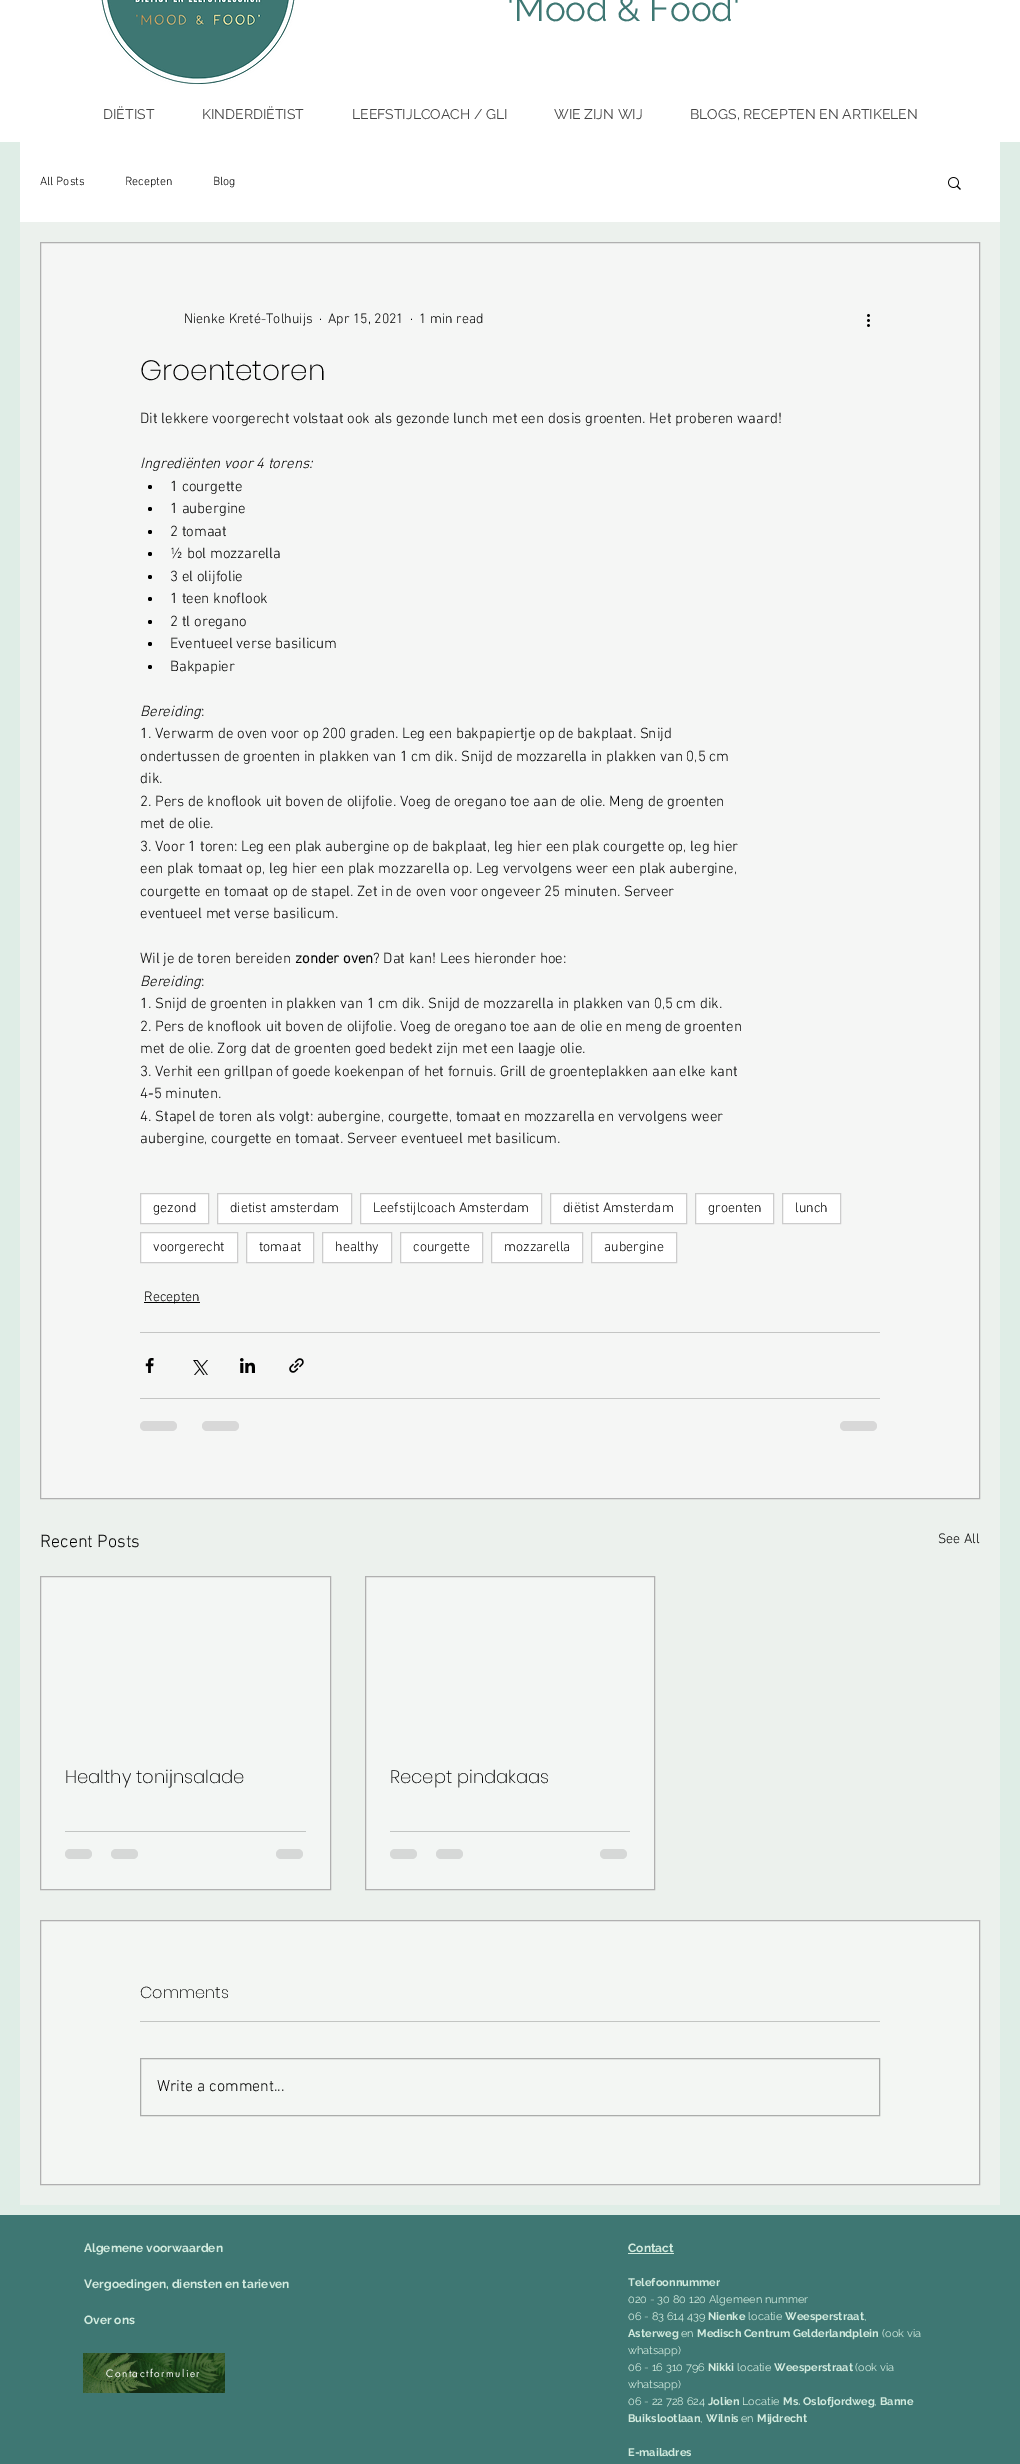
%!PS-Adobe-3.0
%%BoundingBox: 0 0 1020 2464
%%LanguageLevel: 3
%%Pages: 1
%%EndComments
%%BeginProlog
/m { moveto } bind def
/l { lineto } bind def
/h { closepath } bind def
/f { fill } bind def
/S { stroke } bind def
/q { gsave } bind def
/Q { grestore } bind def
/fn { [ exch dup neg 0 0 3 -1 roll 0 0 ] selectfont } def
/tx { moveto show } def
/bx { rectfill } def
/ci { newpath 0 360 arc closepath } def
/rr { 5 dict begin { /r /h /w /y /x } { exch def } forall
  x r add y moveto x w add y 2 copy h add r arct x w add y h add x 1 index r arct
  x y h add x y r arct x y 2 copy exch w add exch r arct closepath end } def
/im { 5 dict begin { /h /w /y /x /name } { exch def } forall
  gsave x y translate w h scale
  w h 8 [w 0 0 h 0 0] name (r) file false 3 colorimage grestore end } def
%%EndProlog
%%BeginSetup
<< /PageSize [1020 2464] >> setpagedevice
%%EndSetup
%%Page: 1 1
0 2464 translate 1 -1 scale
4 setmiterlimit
0.875 0.929 0.902 setrgbcolor
0 0 1020 2464 bx
1 setgray
0 0 1020 142 bx
(image0.raw) 101 0 194 85 im
/Raleway-Regular 35 fn
0.243 0.467 0.451 setrgbcolor
('Mood & Food') 507 21 tx
/Raleway-Regular 14 fn
0.267 setgray
(DIËTIST) 103 119 tx
(KINDERDIËTIST) 202 119 tx
(LEEFSTIJLCOACH / GLI) 352 119 tx
(WIE ZIJN WIJ) 554 119 tx
(BLOGS, RECEPTEN EN ARTIKELEN) 690 119 tx
0.925 0.945 0.929 setrgbcolor
20 222 980 1983 bx
1 setgray
20 142 980 80 bx
/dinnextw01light-Light 12 fn
0 setgray
(All Posts) 40 185 tx
(Recepten) 125 185 tx
(Blog) 213 185 tx
(image1.raw) 948 177 13 13 im
0.961 0.965 0.961 setrgbcolor
40.5 242.5 m 979.5 242.5 l 979.5 1498.5 l 40.5 1498.5 l h q f Q
0.69 setgray
S
/dinnextw01light-Light 14 fn
0 setgray
(Nienke Kreté-Tolhuijs) 184 323 tx
(·) 319 323 tx
(Apr 15, 2021) 328 323 tx
(·) 410 323 tx
(1 min read) 419 323 tx
(image2.raw) 867 314 3 13 im
/Poppins-ExtraLight 28 fn
(Groentetoren) 140 380 tx
/dinnextw01light-Light 15 fn
(Dit lekkere voorgerecht volstaat ook als gezonde lunch met een dosis groenten. Het proberen waard!) 140 423 tx
/dinnextw01light-LightItalic 15 fn
(Ingrediënten voor 4 torens:) 140 468 tx
150 487 2 ci f
/dinnextw01light-Light 15 fn
(1 courgette) 170 491 tx
150 509 2 ci f
(1 aubergine) 170 513 tx
150 532 2 ci f
(2 tomaat) 170 536 tx
150 554 2 ci f
(½ bol mozzarella) 170 558 tx
150 577 2 ci f
(3 el olijfolie) 170 581 tx
150 599 2 ci f
(1 teen knoflook) 170 603 tx
150 622 2 ci f
(2 tl oregano) 170 626 tx
150 644 2 ci f
(Eventueel verse basilicum) 170 648 tx
150 667 2 ci f
(Bakpapier) 170 671 tx
/dinnextw01light-LightItalic 15 fn
(Bereiding) 140 716 tx
/dinnextw01light-Light 15 fn
(:) 201 716 tx
(1. Verwarm de oven voor op 200 graden. Leg een bakpapiertje op de bakplaat. Snijd) 140 738 tx
(ondertussen de groenten in plakken van 1 cm dik. Snijd de mozzarella in plakken van 0,5 cm) 140 761 tx
(dik.) 140 783 tx
(2. Pers de knoflook uit boven de olijfolie. Voeg de oregano toe aan de olie. Meng de groenten) 140 806 tx
(met de olie.) 140 828 tx
(3. Voor 1 toren: Leg een plak aubergine op de bakplaat, leg hier een plak courgette op, leg hier) 140 851 tx
(een plak tomaat op, leg hier een plak mozzarella op. Leg vervolgens weer een plak aubergine,) 140 873 tx
(courgette en tomaat op de stapel. Zet in de oven voor ongeveer 25 minuten. Serveer) 140 896 tx
(eventueel met verse basilicum.) 140 918 tx
(Wil je de toren bereiden) 140 963 tx
/dinnextw01light-Bold 15 fn
(zonder oven) 295 963 tx
/dinnextw01light-Light 15 fn
(? Dat kan! Lees hieronder hoe:) 373 963 tx
/dinnextw01light-LightItalic 15 fn
(Bereiding) 140 986 tx
/dinnextw01light-Light 15 fn
(:) 201 986 tx
(1. Snijd de groenten in plakken van 1 cm dik. Snijd de mozzarella in plakken van 0,5 cm dik.) 140 1008 tx
(2. Pers de knoflook uit boven de olijfolie. Voeg de oregano toe aan de olie en meng de groenten) 140 1031 tx
(met de olie. Zorg dat de groenten goed bedekt zijn met een laagje olie.) 140 1053 tx
(3. Verhit een grillpan of goede koekenpan of het fornuis. Grill de groenteplakken aan elke kant) 140 1076 tx
(4-5 minuten.) 140 1098 tx
(4. Stapel de toren als volgt: aubergine, courgette, tomaat en mozzarella en vervolgens weer) 140 1121 tx
(aubergine, courgette en tomaat. Serveer eventueel met basilicum.) 140 1143 tx
1 setgray
140.5 1193.5 m 208.5 1193.5 l 208.5 1223.5 l 140.5 1223.5 l h q f Q
0.8 setgray
S
/dinnextw01light-Light 14 fn
0 setgray
(gezond) 153 1212 tx
1 setgray
217.5 1193.5 m 351.5 1193.5 l 351.5 1223.5 l 217.5 1223.5 l h q f Q
0.8 setgray
S
0 setgray
(dietist amsterdam) 230 1212 tx
1 setgray
360.5 1193.5 m 541.5 1193.5 l 541.5 1223.5 l 360.5 1223.5 l h q f Q
0.8 setgray
S
0 setgray
(Leefstijlcoach Amsterdam) 373 1212 tx
1 setgray
550.5 1193.5 m 686.5 1193.5 l 686.5 1223.5 l 550.5 1223.5 l h q f Q
0.8 setgray
S
0 setgray
(diëtist Amsterdam) 563 1212 tx
1 setgray
695.5 1193.5 m 773.5 1193.5 l 773.5 1223.5 l 695.5 1223.5 l h q f Q
0.8 setgray
S
0 setgray
(groenten) 708 1212 tx
1 setgray
782.5 1193.5 m 840.5 1193.5 l 840.5 1223.5 l 782.5 1223.5 l h q f Q
0.8 setgray
S
0 setgray
(lunch) 795 1212 tx
1 setgray
140.5 1232.5 m 237.5 1232.5 l 237.5 1262.5 l 140.5 1262.5 l h q f Q
0.8 setgray
S
0 setgray
(voorgerecht) 153 1251 tx
1 setgray
246.5 1232.5 m 313.5 1232.5 l 313.5 1262.5 l 246.5 1262.5 l h q f Q
0.8 setgray
S
0 setgray
(tomaat) 259 1251 tx
1 setgray
322.5 1232.5 m 391.5 1232.5 l 391.5 1262.5 l 322.5 1262.5 l h q f Q
0.8 setgray
S
0 setgray
(healthy) 335 1251 tx
1 setgray
400.5 1232.5 m 482.5 1232.5 l 482.5 1262.5 l 400.5 1262.5 l h q f Q
0.8 setgray
S
0 setgray
(courgette) 413 1251 tx
1 setgray
491.5 1232.5 m 582.5 1232.5 l 582.5 1262.5 l 491.5 1262.5 l h q f Q
0.8 setgray
S
0 setgray
(mozzarella) 504 1251 tx
1 setgray
591.5 1232.5 m 676.5 1232.5 l 676.5 1262.5 l 591.5 1262.5 l h q f Q
0.8 setgray
S
0 setgray
(aubergine) 604 1251 tx
144 1302 56 1 bx
(Recepten) 144 1301 tx
0.769 0.773 0.769 setrgbcolor
140 1332 740 1 bx
(image3.raw) 145 1358 9 15 im
(image4.raw) 193 1360 15 15 im
(image5.raw) 240 1358 15 15 im
(image6.raw) 289 1358 15 15 im
140 1398 740 1 bx
0.847 setgray
140 1421 37 10 5 rr f
202 1421 37 10 5 rr f
840 1421 37 10 5 rr f
/dinnextw01light-Light 18 fn
0 setgray
(Recent Posts) 40 1547 tx
/dinnextw01light-Light 14 fn
(See All) 938 1543 tx
0.953 0.965 0.957 setrgbcolor
40.5 1576.5 m 330.5 1576.5 l 330.5 1889.5 l 40.5 1889.5 l h q f Q
0.69 setgray
S
/Poppins-ExtraLight 18 fn
0 setgray
(Healthy tonijnsalade) 65 1783 tx
0.761 0.773 0.765 setrgbcolor
65 1831 241 1 bx
0.839 0.847 0.843 setrgbcolor
65 1849 27 10 5 rr f
111 1849 27 10 5 rr f
276 1849 27 10 5 rr f
0.953 0.965 0.957 setrgbcolor
365.5 1576.5 m 654.5 1576.5 l 654.5 1889.5 l 365.5 1889.5 l h q f Q
0.69 setgray
S
0 setgray
(Recept pindakaas) 390 1783 tx
0.761 0.773 0.765 setrgbcolor
390 1831 240 1 bx
0.839 0.847 0.843 setrgbcolor
390 1849 27 10 5 rr f
436 1849 27 10 5 rr f
600 1849 27 10 5 rr f
0.953 0.965 0.953 setrgbcolor
40.5 1920.5 m 979.5 1920.5 l 979.5 2184.5 l 40.5 2184.5 l h q f Q
0.69 setgray
S
/Poppins-ExtraLight 16 fn
0 setgray
(Comments) 140 1998 tx
0.761 0.773 0.761 setrgbcolor
140 2021 740 1 bx
0.667 0.675 0.667 setrgbcolor
140.5 2058.5 739 57 rectstroke
/dinnextw01light-Light 16 fn
0 setgray
(Write a comment...) 157 2091 tx
0.243 0.467 0.451 setrgbcolor
0 2215 1020 249 bx
/Raleway-Bold 12 fn
0.824 0.922 0.875 setrgbcolor
(Algemene voorwaarden) 84 2252 tx
(Vergoedingen, diensten en tarieven) 84 2288 tx
(Over ons) 84 2324 tx
(Contact) 628 2252 tx
628 2253 46 1 bx
/Raleway-Bold 11 fn
(Telefoonnummer) 628 2286 tx
/Raleway-Regular 11 fn
(020 - 30 80 120 Algemeen nummer) 628 2303 tx
(06 - 83 614 439) 628 2320 tx
/Raleway-Bold 11 fn
(Nienke) 708 2320 tx
/Raleway-Regular 11 fn
(locatie) 748 2320 tx
/Raleway-Bold 11 fn
(Weesperstraat) 785 2320 tx
/Raleway-Regular 11 fn
(,) 864 2320 tx
/Raleway-Bold 11 fn
(Asterweg) 628 2337 tx
/Raleway-Regular 11 fn
(en) 681 2337 tx
/Raleway-Bold 11 fn
(Medisch Centrum Gelderlandplein) 697 2337 tx
/Raleway-Regular 11 fn
(\(ook via) 882 2337 tx
(whatsapp\)) 628 2354 tx
(06 - 16 310 796) 628 2371 tx
/Raleway-Bold 11 fn
(Nikki) 708 2371 tx
/Raleway-Regular 11 fn
(locatie) 737 2371 tx
/Raleway-Bold 11 fn
(Weesperstraat) 774 2371 tx
/Raleway-Regular 11 fn
(\(ook via) 855 2371 tx
(whatsapp\)) 628 2388 tx
(06 - 22 728 624) 628 2405 tx
/Raleway-Bold 11 fn
(Jolien) 708 2405 tx
/Raleway-Regular 11 fn
(Locatie) 742 2405 tx
/Raleway-Bold 11 fn
(Ms. Oslofjordweg) 783 2405 tx
/Raleway-Regular 11 fn
(,) 874 2405 tx
/Raleway-Bold 11 fn
(Banne) 880 2405 tx
(Buikslootlaan) 628 2422 tx
/Raleway-Regular 11 fn
(,) 700 2422 tx
/Raleway-Bold 11 fn
(Wilnis) 706 2422 tx
/Raleway-Regular 11 fn
(en) 741 2422 tx
/Raleway-Bold 11 fn
(Mijdrecht) 757 2422 tx
(E-mailadres) 628 2456 tx
(image7.raw) 83 2353 142 40 im
/futura-Regular 10 fn
1 setgray
106 2377 m 1.5 0 (Contactformulier) ashow
showpage
%%EOF
